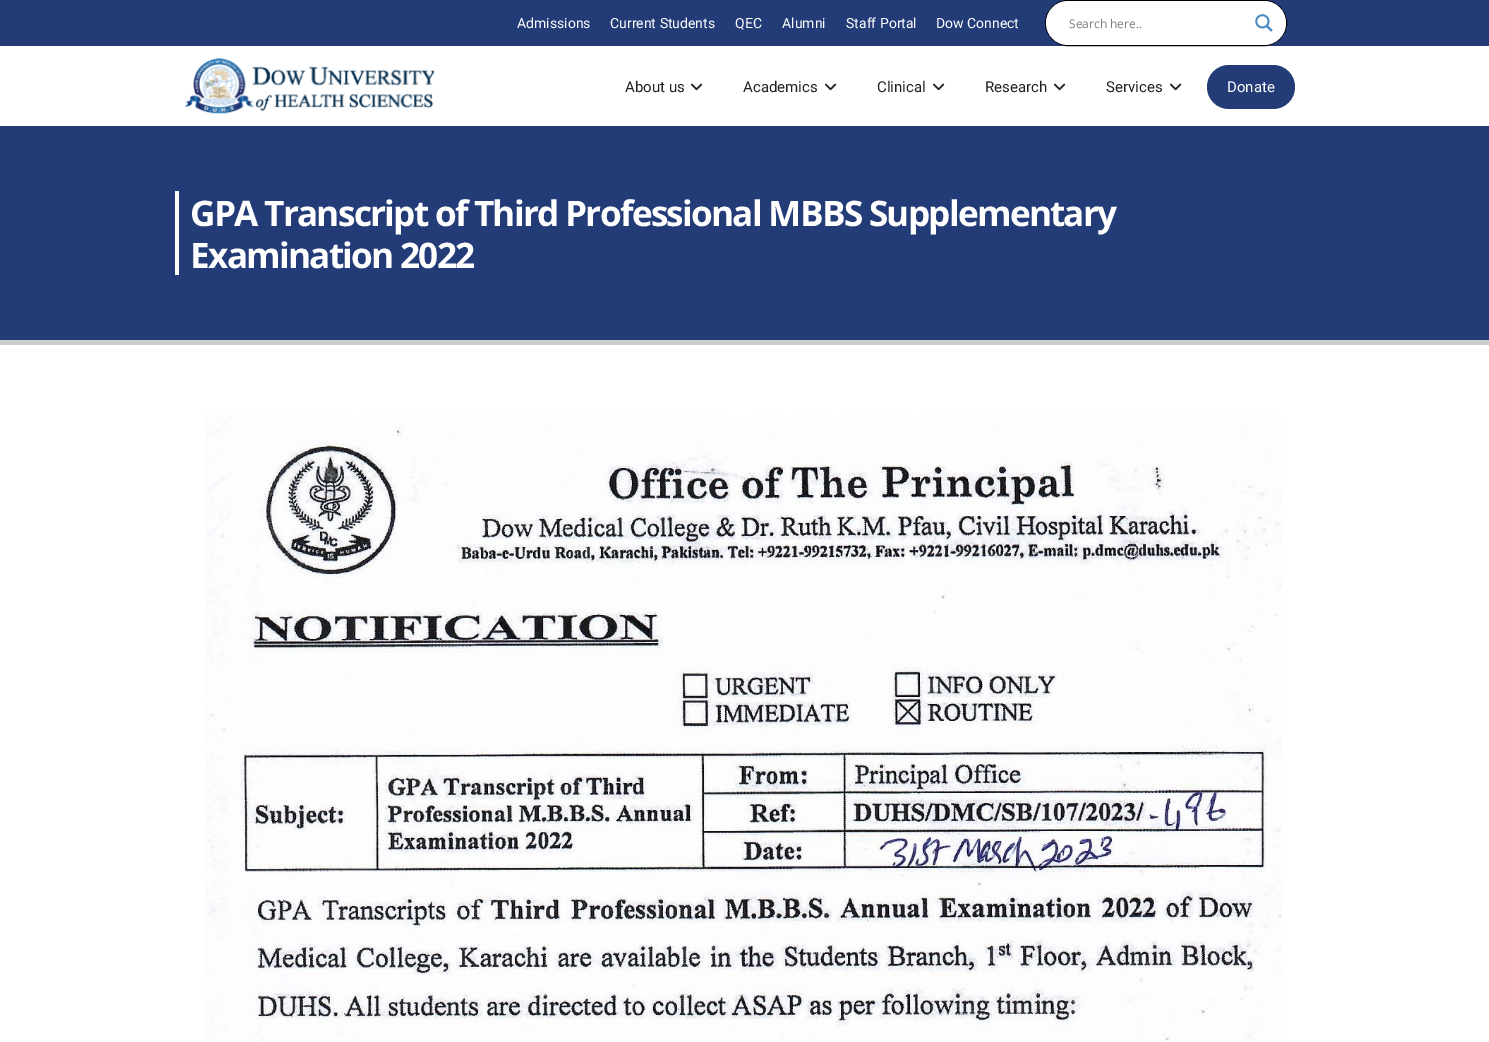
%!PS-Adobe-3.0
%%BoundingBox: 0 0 1489 1042
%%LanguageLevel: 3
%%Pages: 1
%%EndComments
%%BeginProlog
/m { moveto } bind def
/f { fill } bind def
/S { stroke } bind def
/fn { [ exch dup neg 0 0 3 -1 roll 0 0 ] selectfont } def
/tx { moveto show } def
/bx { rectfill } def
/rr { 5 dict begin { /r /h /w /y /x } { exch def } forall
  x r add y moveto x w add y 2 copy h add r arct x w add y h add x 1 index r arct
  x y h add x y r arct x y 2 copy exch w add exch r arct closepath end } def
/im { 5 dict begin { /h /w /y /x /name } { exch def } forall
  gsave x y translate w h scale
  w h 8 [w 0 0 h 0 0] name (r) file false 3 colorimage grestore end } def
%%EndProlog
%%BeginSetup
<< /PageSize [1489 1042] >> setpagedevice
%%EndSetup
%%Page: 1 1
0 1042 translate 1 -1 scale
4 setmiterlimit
1 setgray
0 0 1489 1042 bx
0.137 0.231 0.467 setrgbcolor
0 0 1489 46 bx
/Roboto-Regular 14 fn
1 setgray
(Admissions) 517 28 tx
(Current Students) 610 28 tx
(QEC) 735 28 tx
(Alumni) 782 28 tx
(Staff Portal) 846 28 tx
(Dow Connect) 936 28 tx
0 setgray
1045.5 0.5 241 45 22.5 rr S
1 setgray
1046 1 240 44 22 rr f
/OpenSans-Regular 12 fn
0.49 setgray
(Search here..) 1069 28 tx
(image0.raw) 1255 14 18 18 im
(image1.raw) 185 58 250 56 im
/Roboto-Regular 15 fn
0.133 setgray
(About us) 625 92 tx
(image2.raw) 691 83 12 8 im
(Academics) 743 92 tx
(image2.raw) 825 83 12 8 im
(Clinical) 877 92 tx
(image2.raw) 933 83 12 8 im
(Research) 985 92 tx
(image2.raw) 1054 83 12 8 im
(Services) 1106 92 tx
(image2.raw) 1170 83 12 8 im
0.137 0.231 0.467 setrgbcolor
1207 65 88 44 22 rr f
1 setgray
(Donate) 1227 92 tx
0.137 0.231 0.467 setrgbcolor
0 126 1489 214 bx
0.8 setgray
0 340 1489 5 bx
1 setgray
175 191 4 84 bx
/OpenSans-Bold 35.2 fn
190 226 m -1.75 0 (GPA Transcript of Third Professional MBBS Supplementary) ashow
190 268 m -1.75 0 (Examination 2022) ashow
(image3.raw) 205 415 1077 627 im
showpage
%%EOF
